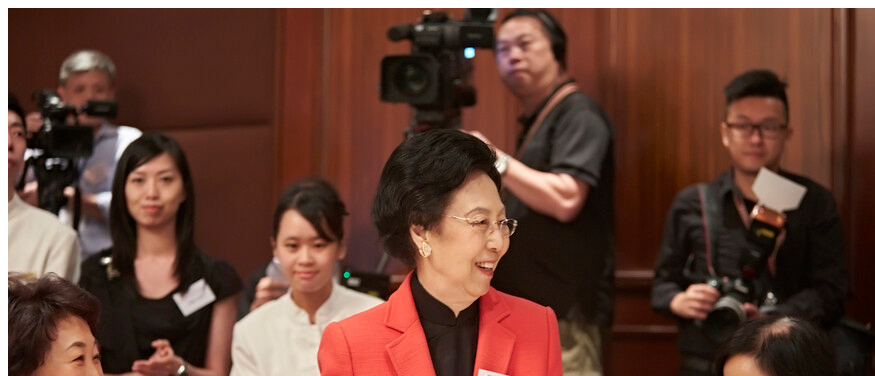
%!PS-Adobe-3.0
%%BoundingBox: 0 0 875 376
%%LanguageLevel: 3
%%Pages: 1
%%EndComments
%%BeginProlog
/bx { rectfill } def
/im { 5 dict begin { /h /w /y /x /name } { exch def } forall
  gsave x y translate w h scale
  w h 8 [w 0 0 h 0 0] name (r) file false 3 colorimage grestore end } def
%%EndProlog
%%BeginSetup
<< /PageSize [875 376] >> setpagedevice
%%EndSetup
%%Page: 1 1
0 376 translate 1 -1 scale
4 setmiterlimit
1 setgray
0 0 875 376 bx
(image0.raw) 8 8 867 368 im
showpage
%%EOF
